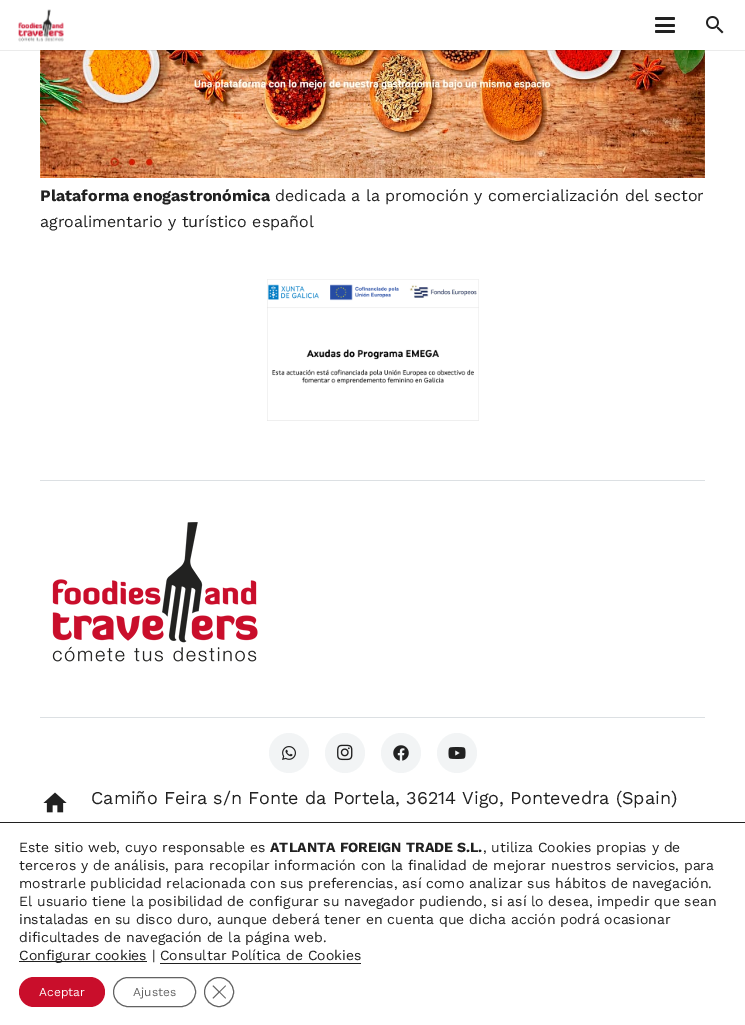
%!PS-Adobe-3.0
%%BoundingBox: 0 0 745 1025
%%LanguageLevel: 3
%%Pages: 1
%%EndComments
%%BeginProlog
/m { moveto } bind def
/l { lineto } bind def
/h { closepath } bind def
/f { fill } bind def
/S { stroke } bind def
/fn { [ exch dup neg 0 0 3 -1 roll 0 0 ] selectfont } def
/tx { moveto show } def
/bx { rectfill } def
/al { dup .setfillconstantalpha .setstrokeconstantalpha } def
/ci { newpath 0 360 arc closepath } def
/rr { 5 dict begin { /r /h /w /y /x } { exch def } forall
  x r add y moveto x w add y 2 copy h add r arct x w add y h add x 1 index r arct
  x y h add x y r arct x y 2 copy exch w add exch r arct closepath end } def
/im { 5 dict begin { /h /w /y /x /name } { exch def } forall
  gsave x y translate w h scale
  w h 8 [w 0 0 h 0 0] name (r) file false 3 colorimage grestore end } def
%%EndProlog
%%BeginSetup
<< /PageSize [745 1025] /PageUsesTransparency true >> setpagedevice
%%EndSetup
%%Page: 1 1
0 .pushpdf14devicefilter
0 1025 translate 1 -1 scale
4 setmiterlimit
1 setgray
0 0 745 1025 bx
(image2.raw) 40 50 665 128 im
0.08 al
0 setgray
0 50 745 1 bx
1 al
(image0.raw) 18 9 46 33 im
0.129 setgray
655 24 20 3 1.5 rr f
655 17 20 3 1.5 rr f
655 30 20 3 1.5 rr f
(image1.raw) 706 16 18 18 im
/WorkSans-Bold 16 fn
(Plataforma enogastronómica) 40 201 tx
/WorkSans-Regular 16 fn
(dedicada a la promoción y comercialización del sector) 275 201 tx
(agroalimentario y turístico español) 40 227 tx
(image3.raw) 267 279 212 142 im
0.863 0.878 0.89 setrgbcolor
40 480 665 1 bx
(image4.raw) 52 522 206 140 im
40 717 665 1 bx
0.949 0.957 0.961 setrgbcolor
289 753 20 ci f
(image5.raw) 282 746 14 14 im
345 753 20 ci f
(image6.raw) 337 744 16 17 im
401 753 20 ci f
(image7.raw) 393 745 16 16 im
457 753 20 ci f
(image8.raw) 448 747 18 12 im
(image9.raw) 43 792 24 21 im
/WorkSans-Regular 18 fn
0.129 setgray
(Camiño Feira s/n Fonte da Portela, 36214 Vigo, Pontevedra \(Spain\)) 91 804 tx
0.125 setgray
0 822 745 1 bx
/WorkSans-Regular 14 fn
0.129 setgray
(Este sitio web, cuyo responsable es) 19 852 tx
/WorkSans-Bold 14 fn
(ATLANTA FOREIGN TRADE S.L.) 270 852 tx
/WorkSans-Regular 14 fn
(, utiliza Cookies propias y de) 483 852 tx
(terceros y de análisis, para recopilar información con la finalidad de mejorar nuestros servicios, para) 19 870 tx
(mostrarle publicidad relacionada con sus preferencias, así como analizar sus hábitos de navegación.) 19 888 tx
(El usuario tiene la posibilidad de configurar su navegador pudiendo, si así lo desea, impedir que sean) 19 906 tx
(instaladas en su disco duro, aunque deberá tener en cuenta que dicha acción podrá ocasionar) 19 924 tx
(dificultades de navegación de la página web.) 19 942 tx
0.125 setgray
19 961 128 1 bx
0.129 setgray
(Configurar cookies | Consultar Política de Cookies) 19 960 tx
0.125 setgray
160 963 201 1 bx
0.788 0.055 0.169 setrgbcolor
19 977 86 30 15 rr f
/WorkSans-Regular 12 fn
1 setgray
(Aceptar) 39 996 tx
0.388 setgray
113.5 977.5 82 29 14.5 rr S
(Ajustes) 133 996 tx
0.384 setgray
219 992 14.5 ci S
225.5 985.5 m 226 986 l 213.5 998.5 l 212.5 998 l h f
212.5 986 m 213.5 985.5 l 226 998 l 225.5 998.5 l h f
.poppdf14devicefilter showpage
%%EOF
